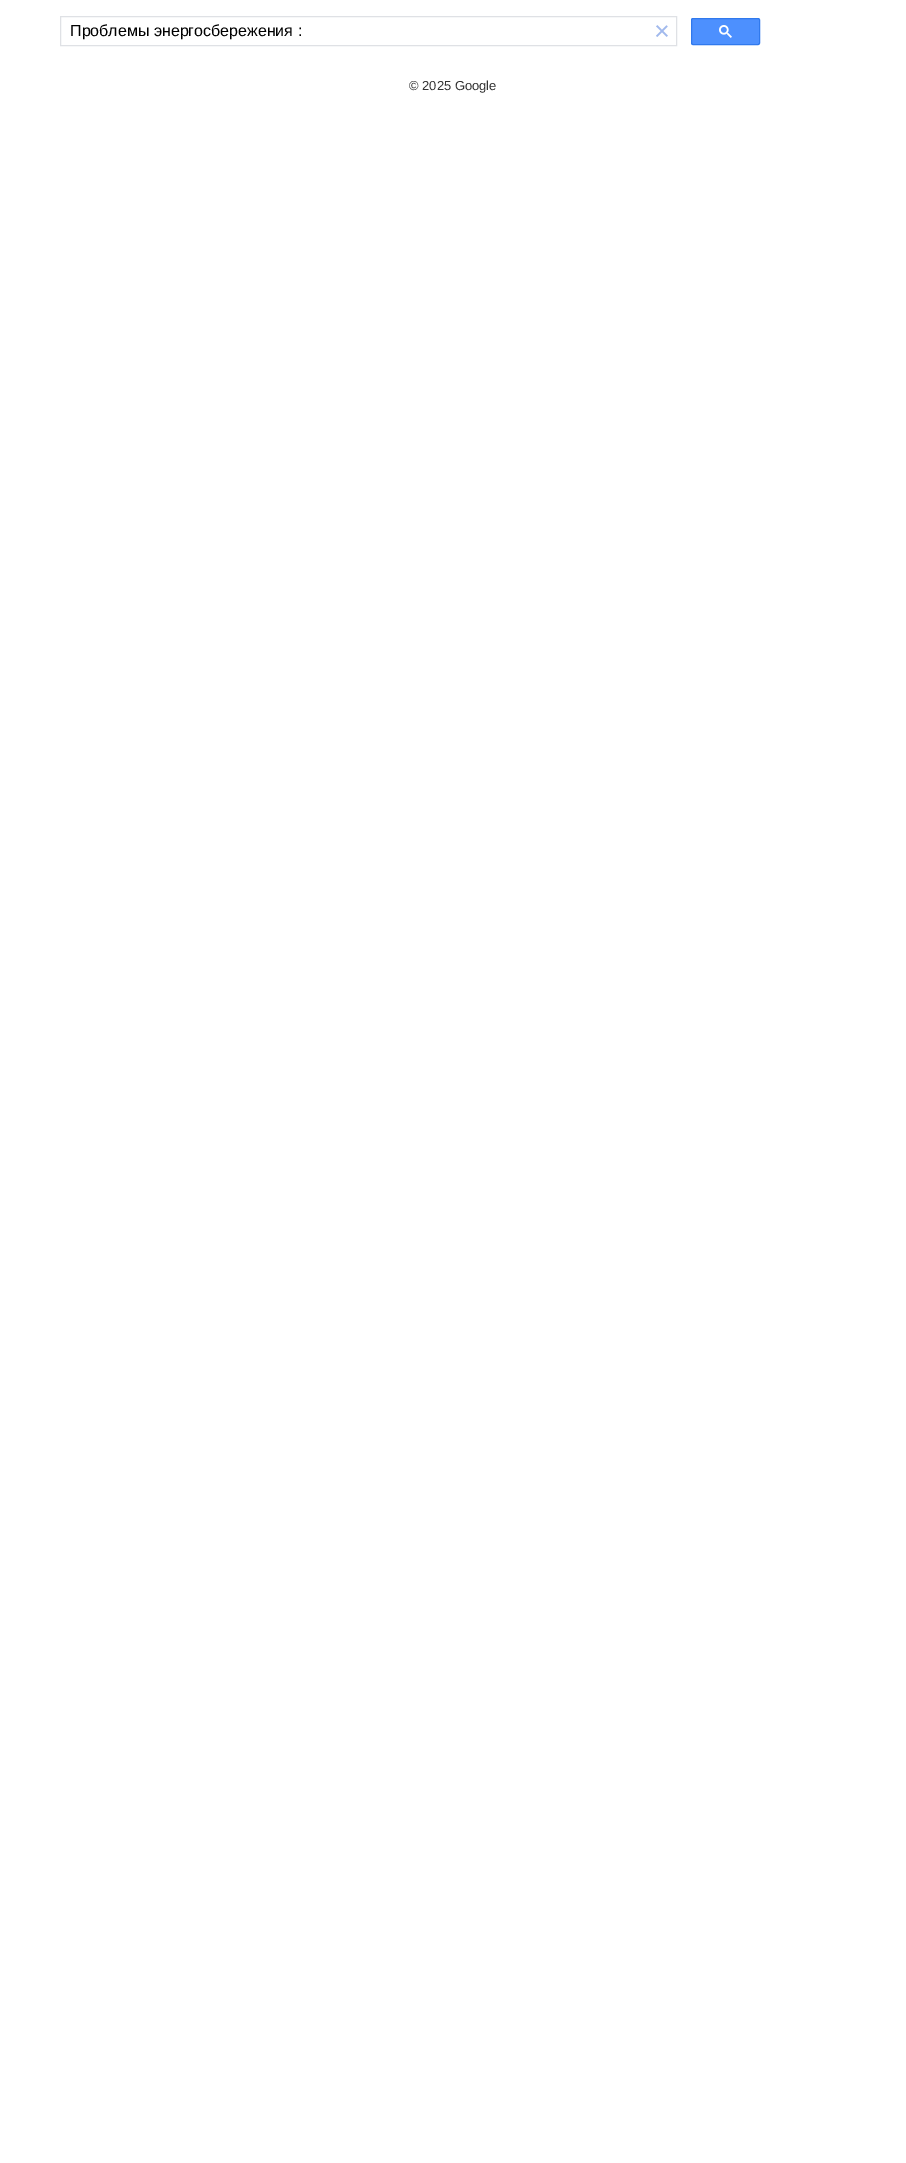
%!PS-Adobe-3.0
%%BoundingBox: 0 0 906 2163
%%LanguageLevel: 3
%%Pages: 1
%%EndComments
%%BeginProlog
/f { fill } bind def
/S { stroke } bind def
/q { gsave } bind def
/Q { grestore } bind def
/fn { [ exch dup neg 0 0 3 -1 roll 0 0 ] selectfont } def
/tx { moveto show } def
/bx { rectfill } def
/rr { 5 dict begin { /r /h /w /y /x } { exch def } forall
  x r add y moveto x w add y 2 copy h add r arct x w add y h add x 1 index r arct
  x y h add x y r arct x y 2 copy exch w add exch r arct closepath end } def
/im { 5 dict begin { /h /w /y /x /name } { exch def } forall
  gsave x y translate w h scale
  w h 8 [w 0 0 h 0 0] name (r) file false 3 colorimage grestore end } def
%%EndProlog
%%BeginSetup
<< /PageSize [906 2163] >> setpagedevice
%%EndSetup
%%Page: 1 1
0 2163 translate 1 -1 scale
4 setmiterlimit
1 setgray
0 0 906 2163 bx
0.875 0.882 0.898 setrgbcolor
60.5 16.5 616 29 rectstroke
/LiberationSans-Regular 16 fn
0 setgray
(Проблемы энергосбережения :) 70 36 tx
/LiberationSans-Regular 27 fn
0.631 0.725 0.929 setrgbcolor
(×) 654 40 tx
0.302 0.565 0.996 setrgbcolor
691.5 18.5 68 26 1.5 rr q f Q
0.188 0.475 0.929 setrgbcolor
S
(image0.raw) 719 25 13 13 im
/LiberationSans-Regular 13 fn
0.2 setgray
(© 2025 Google) 409 90 tx
showpage
%%EOF
